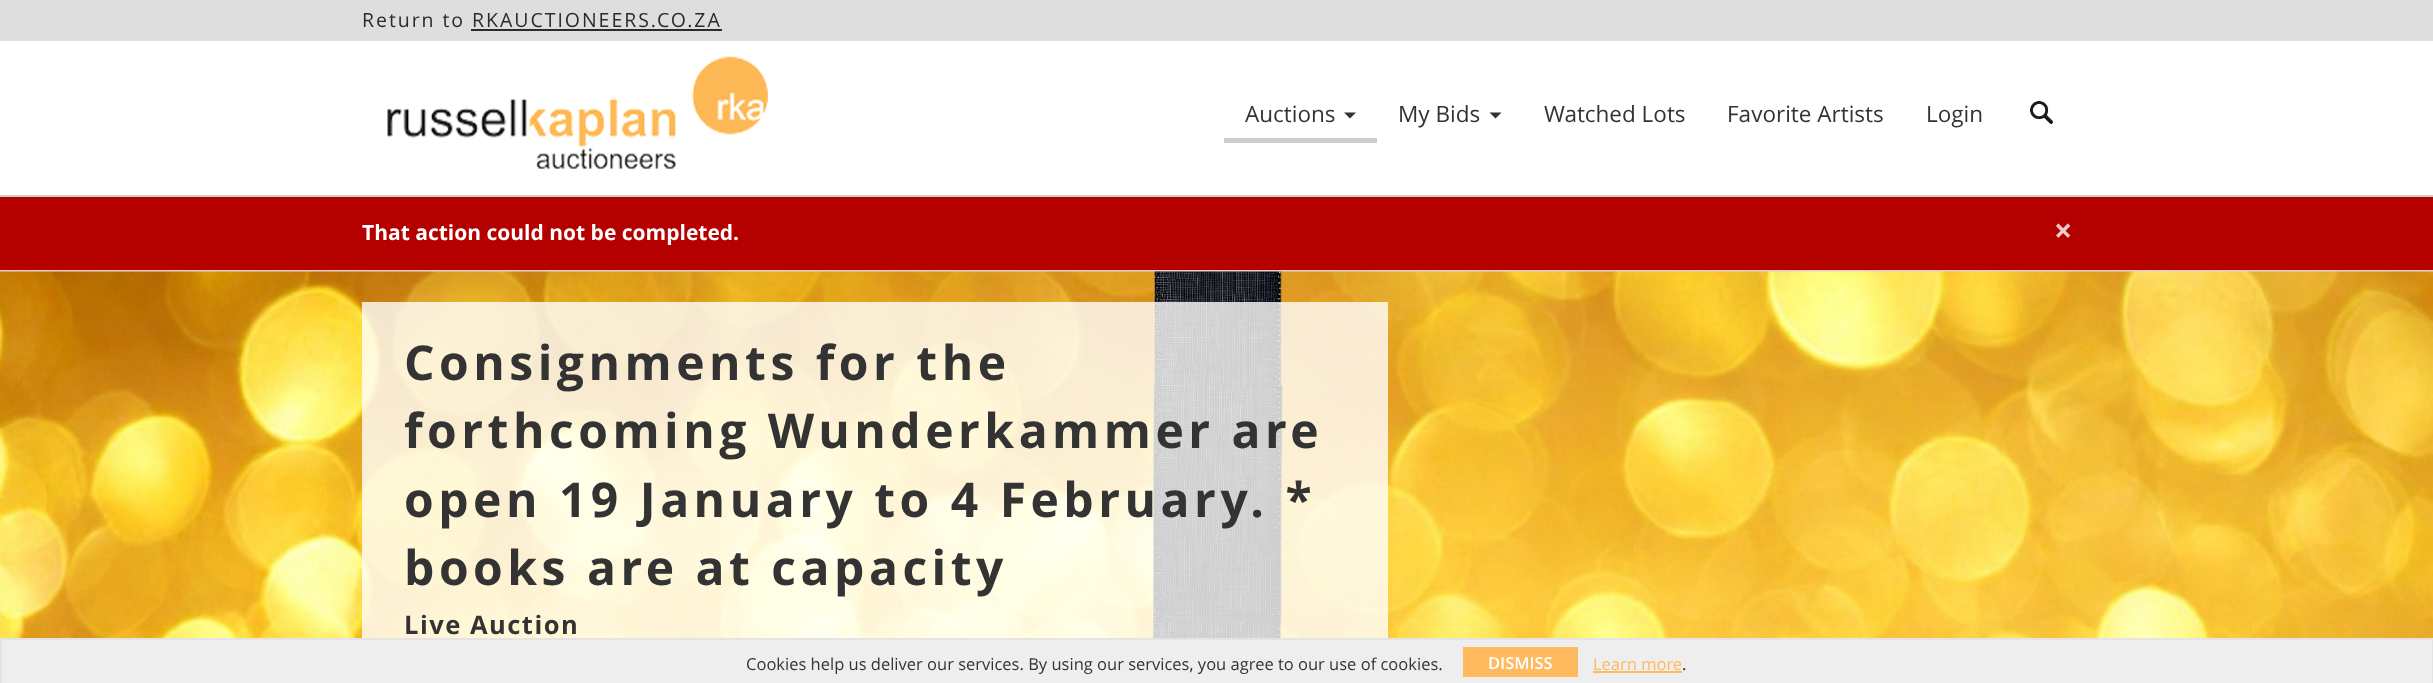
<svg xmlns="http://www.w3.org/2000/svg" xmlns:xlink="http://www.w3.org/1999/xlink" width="2433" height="683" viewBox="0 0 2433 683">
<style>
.cls-1{font:19.5px Open Sans;letter-spacing:1.95px;fill:#2b2b2b}
.cls-2{font:22.5px Open Sans;fill:#333333}
.cls-3{font:bold 21px Open Sans;fill:#ffffff}
.cls-4{font:bold 32px Open Sans;fill:#f0cccc}
.cls-5{font:bold 48px Open Sans;letter-spacing:4.5px;fill:#333333}
.cls-6{font:bold 25.5px Open Sans;letter-spacing:1.5px;fill:#333333}
.cls-7{font:16.5px Open Sans;fill:#333333}
.cls-8{font:600 16.5px Open Sans;fill:#ffffff}
.cls-9{font:16.5px Open Sans;fill:#ffba5f}
</style>
<rect width="100%" height="100%" fill="#b50000"/>
<rect fill="#dedede" x="0" y="0" width="2433" height="41"/>
<rect fill="#2b2b2b" x="471" y="29" width="251" height="2"/>
<rect fill="#ffffff" x="0" y="41" width="2433" height="154"/>
<rect fill="#cccccc" x="0" y="195" width="2433" height="2"/>
<image xlink:href="image0.png" x="387" y="56" width="382" height="113"/>
<rect fill="#cccccc" x="1224" y="138" width="153" height="5"/>
<path fill="#333333" d="M1344 112.5H1356L1350 118.5Z"/>
<path fill="#333333" d="M1489.5 112.5H1501.5L1495.5 118.5Z"/>
<image xlink:href="image1.png" x="2030" y="101" width="23" height="23"/>
<rect fill="#ebccd1" x="0" y="270" width="2433" height="2"/>
<image xlink:href="image2.png" x="0" y="271" width="2433" height="367"/>
<rect fill="#ffffff" fill-opacity="0.8" x="362" y="302" width="1026" height="336"/>
<rect fill="#eeeeee" x="2" y="640" width="2430" height="43"/>
<rect fill="#e4e4e4" x="0" y="638" width="2433" height="2"/>
<rect fill="#e4e4e4" x="2432" y="638" width="1" height="45"/>
<rect fill="#e4e4e4" x="0" y="638" width="2" height="45"/>
<rect fill="#ffba5f" x="1463" y="647" width="115" height="30"/>
<rect fill="#ffba5f" x="1593" y="671" width="89" height="2"/>
<text class="cls-1" x="362" y="27">Return to RKAUCTIONEERS.CO.ZA</text>
<text class="cls-2" x="1245" y="122">Auctions</text>
<text class="cls-2" x="1398" y="122">My Bids</text>
<text class="cls-2" x="1544" y="122">Watched Lots</text>
<text class="cls-2" x="1727" y="122">Favorite Artists</text>
<text class="cls-2" x="1926" y="122">Login</text>
<text class="cls-3" x="362" y="240">That action could not be completed.</text>
<text class="cls-4" x="2054" y="242">×</text>
<text class="cls-5"><tspan x="404" y="380">Consignments for the</tspan><tspan x="404" y="448">forthcoming Wunderkammer are</tspan><tspan x="404" y="517">open 19 January to 4 February. *</tspan><tspan x="404" y="585">books are at capacity</tspan></text>
<text class="cls-6" x="404" y="634">Live Auction</text>
<text class="cls-7" x="746" y="670">Cookies help us deliver our services. By using our services, you agree to our use of cookies.</text>
<text class="cls-8" x="1488" y="669">DISMISS</text>
<text class="cls-9" x="1593" y="670">Learn more</text>
<text class="cls-7" x="1682" y="670">.</text>
</svg>
